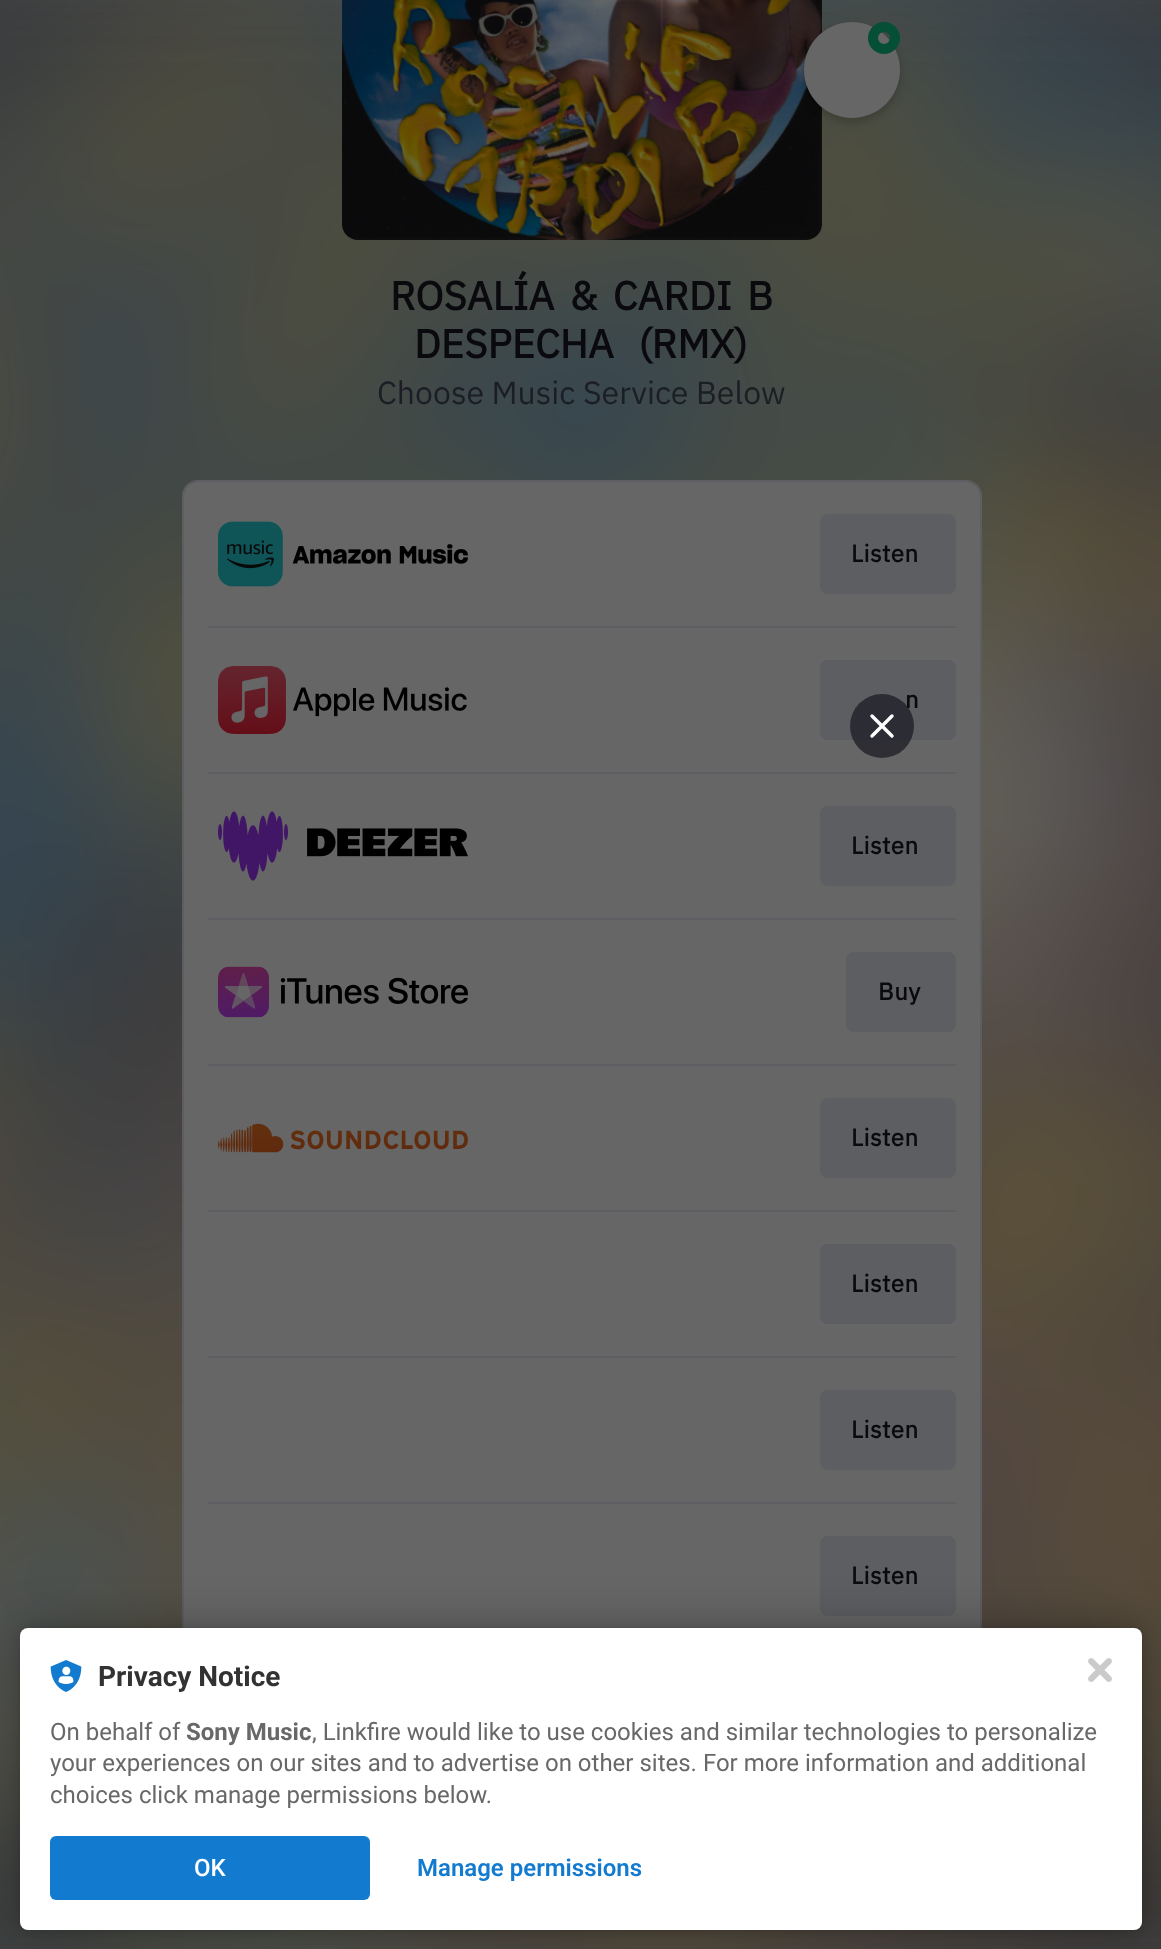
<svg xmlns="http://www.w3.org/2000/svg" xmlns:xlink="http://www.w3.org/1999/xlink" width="1161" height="1949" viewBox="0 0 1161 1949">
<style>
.cls-1{font:bold 40px IBM Plex Sans;fill:#0a090d}
.cls-2{font:32px IBM Plex Sans;fill:#1c1e26}
.cls-3{font:bold 24px IBM Plex Sans;letter-spacing:0.5px;fill:#0a090d}
.cls-4{font:bold 28px Roboto;fill:#323232}
.cls-5{font:24px Roboto;fill:#686868}
.cls-6{font:bold 24px Roboto;fill:#686868}
.cls-7{font:500 24px Roboto;fill:#ffffff}
.cls-8{font:600 24px Roboto;fill:#137bcf}
</style>
<rect width="100%" height="100%" fill="#666666"/>
<image xlink:href="image0.png" x="0" y="0" width="1161" height="1949"/>
<image xlink:href="image1.png" x="342" y="0" width="480" height="240"/>
<rect fill="#000000" fill-opacity="0.2" filter="blur(4px)" x="804" y="26" width="96" height="96" rx="48"/>
<circle fill="#666666" cx="852" cy="70" r="48"/>
<circle fill="none" stroke="#054f36" stroke-width="10" cx="884" cy="38" r="11"/>
<rect fill="none" stroke="#5c5e61" stroke-width="2" x="183" y="481" width="798" height="1314" rx="15"/>
<rect fill="#666666" x="184" y="482" width="796" height="1312" rx="14"/>
<image xlink:href="image2.png" x="218" y="521" width="250" height="66"/>
<rect fill="#5c5e61" x="820" y="514" width="136" height="80" rx="8"/>
<rect fill="#5c5e61" x="208" y="626" width="748" height="2"/>
<image xlink:href="image3.png" x="218" y="666" width="249" height="68"/>
<rect fill="#5c5e61" x="820" y="660" width="136" height="80" rx="8"/>
<rect fill="#5c5e61" x="208" y="772" width="748" height="2"/>
<image xlink:href="image4.png" x="218" y="811" width="250" height="70"/>
<rect fill="#5c5e61" x="820" y="806" width="136" height="80" rx="8"/>
<rect fill="#5c5e61" x="208" y="918" width="748" height="2"/>
<image xlink:href="image5.png" x="218" y="966" width="250" height="52"/>
<rect fill="#5c5e61" x="846" y="952" width="110" height="80" rx="8"/>
<rect fill="#5c5e61" x="208" y="1064" width="748" height="2"/>
<image xlink:href="image6.png" x="218" y="1123" width="250" height="30"/>
<rect fill="#5c5e61" x="820" y="1098" width="136" height="80" rx="8"/>
<rect fill="#5c5e61" x="208" y="1210" width="748" height="2"/>
<rect fill="#5c5e61" x="820" y="1244" width="136" height="80" rx="8"/>
<rect fill="#5c5e61" x="208" y="1356" width="748" height="2"/>
<rect fill="#5c5e61" x="820" y="1390" width="136" height="80" rx="8"/>
<rect fill="#5c5e61" x="208" y="1502" width="748" height="2"/>
<rect fill="#5c5e61" x="820" y="1536" width="136" height="80" rx="8"/>
<rect fill="#000000" fill-opacity="0.12" filter="blur(4px)" x="20" y="1628" width="1122" height="302" rx="8"/>
<rect fill="#000000" fill-opacity="0.3" filter="blur(24px)" x="20" y="1628" width="1122" height="302" rx="8"/>
<rect fill="#ffffff" x="20" y="1628" width="1122" height="302" rx="8"/>
<image xlink:href="image7.png" x="50" y="1660" width="32" height="32"/>
<rect fill="#137bcf" x="50" y="1836" width="320" height="64" rx="6"/>
<image xlink:href="image8.png" x="1088" y="1658" width="24" height="24"/>
<text class="cls-1" x="390" y="310" word-spacing="6">ROSALÍA &amp; CARDI B</text>
<text class="cls-1" x="414" y="358" word-spacing="15">DESPECHA (RMX)</text>
<text class="cls-2" x="377" y="404">Choose Music Service Below</text>
<text class="cls-3" x="851" y="562">Listen</text>
<text class="cls-3" x="905" y="708">n</text>
<circle fill="#181721" fill-opacity="0.7" cx="882" cy="726" r="32"/>
<path fill="none" stroke="#ffffff" stroke-width="3.4" stroke-linecap="round" stroke-linejoin="round" d="M872 716L892 736M872 736L892 716"/>
<text class="cls-3" x="851" y="854">Listen</text>
<text class="cls-3" x="878" y="1000">Buy</text>
<text class="cls-3" x="851" y="1146">Listen</text>
<text class="cls-3" x="851" y="1292">Listen</text>
<text class="cls-3" x="851" y="1438">Listen</text>
<text class="cls-3" x="851" y="1584">Listen</text>
<text class="cls-4" x="98" y="1686">Privacy Notice</text>
<text class="cls-5" x="50" y="1740">On behalf of</text>
<text class="cls-6" x="186" y="1740">Sony Music</text>
<text class="cls-5" x="312" y="1740">, Linkfire would like to use cookies and similar technologies to personalize</text>
<text class="cls-5"><tspan x="50" y="1771">your experiences on our sites and to advertise on other sites. For more information and additional</tspan><tspan x="50" y="1803">choices click manage permissions below.</tspan></text>
<text class="cls-7" x="194" y="1876">OK</text>
<text class="cls-8" x="417" y="1876">Manage permissions</text>
</svg>
